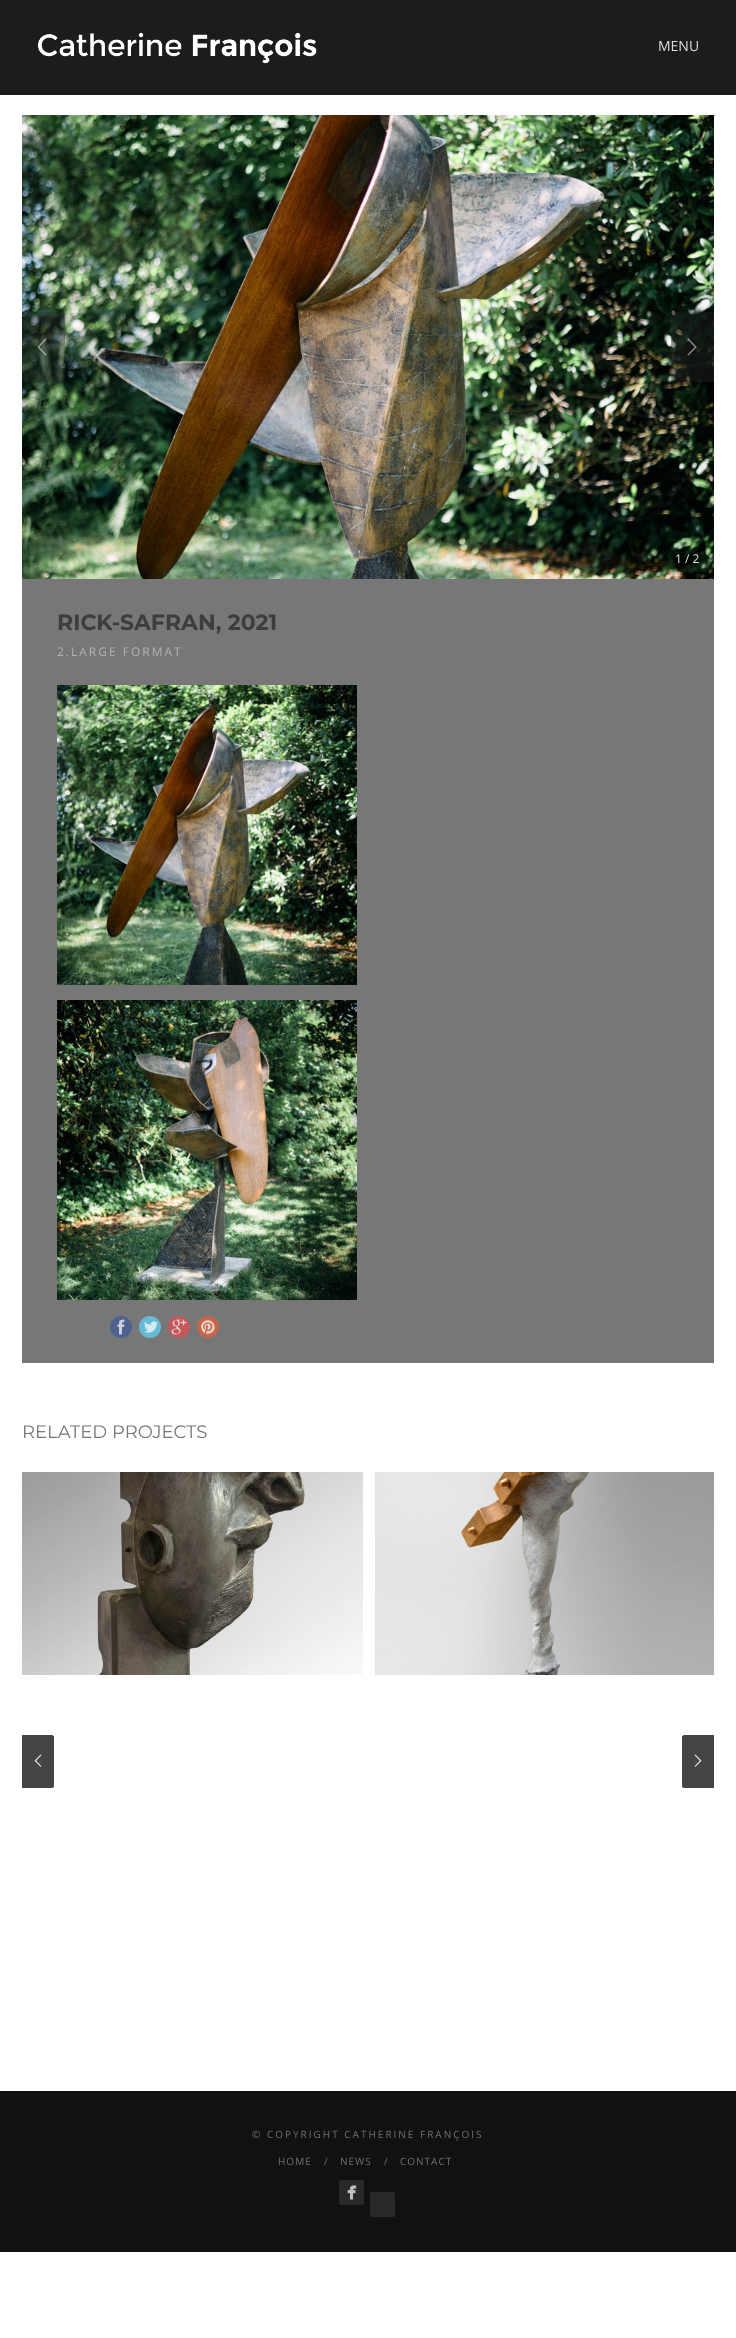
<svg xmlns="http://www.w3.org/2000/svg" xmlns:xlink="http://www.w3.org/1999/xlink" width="736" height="2338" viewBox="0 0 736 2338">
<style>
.cls-1{font:14px Open Sans;fill:#dddddd}
.cls-2{font:12px Open Sans;fill:#e6e6e6}
.cls-3{font:bold 22px Montserrat;fill:#3d3d3d}
.cls-4{font:12px Open Sans;letter-spacing:2px;fill:#b3b3b1}
.cls-5{font:18px Montserrat;fill:#777777}
.cls-6{font:10px Open Sans;letter-spacing:2px;fill:#707070}
.cls-7{font:10px Open Sans;letter-spacing:1px;fill:#707070}
</style>
<rect width="100%" height="100%" fill="#ffffff"/>
<rect fill="#1c1c1c" x="0" y="0" width="736" height="95"/>
<image xlink:href="image0.png" x="38" y="32" width="279" height="32"/>
<rect fill="#777777" x="22" y="579" width="692" height="784"/>
<image xlink:href="image1.png" x="22" y="115" width="692" height="464"/>
<path fill="#252525" fill-opacity="0.4" d="M22 312H62C63.5 312 65 313.5 65 315V379C65 380.5 63.5 382 62 382H22Z"/>
<image xlink:href="image2.png" x="37" y="338" width="10" height="18"/>
<path fill="#252525" fill-opacity="0.4" d="M674 312H714V382H674C672.5 382 671 380.5 671 379V315C671 313.5 672.5 312 674 312Z"/>
<image xlink:href="image3.png" x="687" y="338" width="10" height="18"/>
<image xlink:href="image4.png" x="57" y="685" width="300" height="300"/>
<image xlink:href="image5.png" x="57" y="1000" width="300" height="300"/>
<circle fill="#4e6290" cx="121" cy="1327" r="11"/>
<image xlink:href="image6.png" x="117" y="1319" width="8" height="16"/>
<circle fill="#67bad5" cx="150" cy="1327" r="11"/>
<image xlink:href="image7.png" x="144" y="1321" width="14" height="12"/>
<circle fill="#c4585b" cx="179" cy="1327" r="11"/>
<image xlink:href="image8.png" x="171" y="1319" width="16" height="16"/>
<circle fill="#c6654c" cx="208" cy="1327" r="11"/>
<image xlink:href="image9.png" x="201" y="1320" width="14" height="14"/>
<image xlink:href="image10.png" x="22" y="1472" width="341" height="203"/>
<image xlink:href="image11.png" x="375" y="1472" width="339" height="203"/>
<path fill="#454545" d="M22 1735H52C53 1735 54 1736 54 1737V1786C54 1787 53 1788 52 1788H22Z"/>
<image xlink:href="image12.png" x="34" y="1754" width="8" height="13"/>
<path fill="#454545" d="M684 1735H714V1788H684C683 1788 682 1787 682 1786V1737C682 1736 683 1735 684 1735Z"/>
<image xlink:href="image13.png" x="694" y="1754" width="8" height="13"/>
<rect fill="#111111" x="0" y="2091" width="736" height="161"/>
<rect fill="#292929" x="339" y="2180" width="25" height="25" rx="2"/>
<image xlink:href="image14.png" x="347" y="2185" width="10" height="15"/>
<rect fill="#292929" x="370" y="2192" width="25" height="25" rx="2"/>
<text class="cls-1" x="658" y="51">MENU</text>
<text class="cls-2" x="675" y="563">1 / 2</text>
<text class="cls-3" x="57" y="630">RICK-SAFRAN, 2021</text>
<text class="cls-4" x="57" y="656">2.LARGE FORMAT</text>
<text class="cls-5" x="22" y="1438">RELATED PROJECTS</text>
<text class="cls-6" x="252" y="2138">© COPYRIGHT CATHERINE FRANÇOIS</text>
<text class="cls-7" x="278" y="2165">HOME</text>
<text class="cls-7" x="324" y="2165">/</text>
<text class="cls-7" x="340" y="2165">NEWS</text>
<text class="cls-7" x="384" y="2165">/</text>
<text class="cls-7" x="400" y="2165">CONTACT</text>
</svg>
